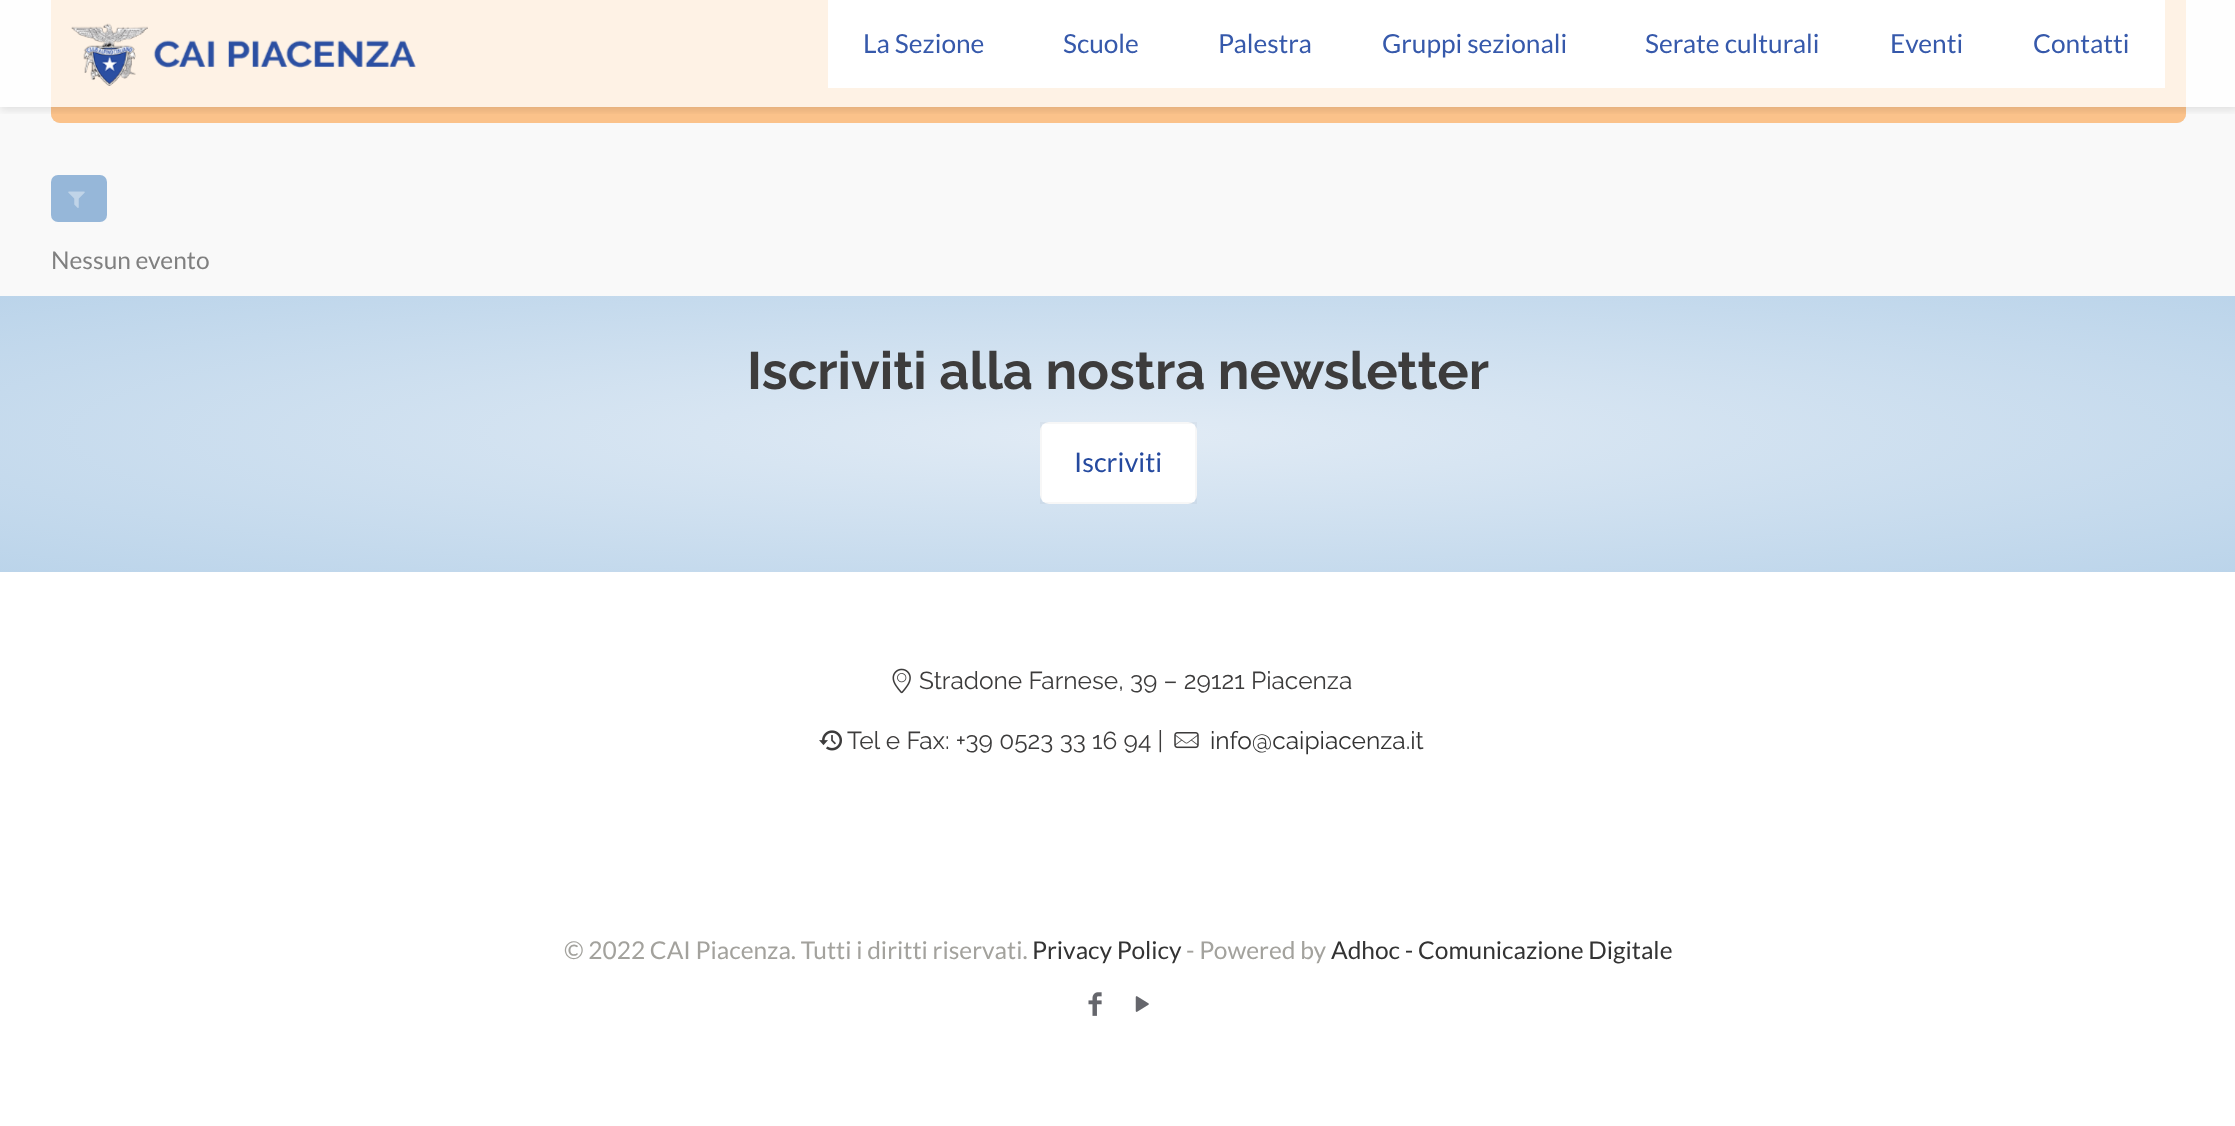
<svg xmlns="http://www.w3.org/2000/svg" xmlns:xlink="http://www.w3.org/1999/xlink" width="2235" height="1126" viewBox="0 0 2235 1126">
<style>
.cls-1{font:26.25px Lato;fill:#3659ab}
.cls-2{font:24.5px Lato;fill:#808080}
.cls-3{font:bold 52.5px Raleway;fill:#3d3c3c}
.cls-4{font:27px Lato;fill:#254a9f}
.cls-5{font:24.5px Raleway;fill:#3d3c3c}
.cls-6{font:24.5px Raleway;fill:#333333}
.cls-7{font:24.5px Lato;fill:#a3a29d}
.cls-8{font:24.5px Lato;fill:#333333}
</style>
<defs>
<clipPath id="clip1"><rect x="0" y="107" width="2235" height="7"/></clipPath>
<radialGradient id="g1" gradientUnits="userSpaceOnUse" cx="0" cy="0" r="1" gradientTransform="matrix(1581 0 0 196 1118 434)"><stop offset="0" stop-color="#e1ebf5"/><stop offset="1" stop-color="#bbd4ea"/></radialGradient>
</defs>
<rect width="100%" height="100%" fill="#f9f9f9"/>
<rect fill="#dcdcdc" x="51" y="-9" width="2135" height="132" rx="9"/>
<rect fill="#ffbf80" fill-opacity="0.89" x="51" y="-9" width="2135" height="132" rx="9"/>
<g clip-path="url(#clip1)">
<rect fill="#000000" fill-opacity="0.1" filter="blur(4.5px)" x="0" y="4" width="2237" height="106"/>
</g>
<rect fill="#ffffff" fill-opacity="0.78" x="0" y="0" width="2235" height="107"/>
<image xlink:href="image0.png" x="71" y="23" width="345" height="63"/>
<rect fill="#ffffff" fill-opacity="0.78" x="828" y="0" width="1337" height="88"/>
<rect fill="#ffffff" fill-opacity="0.97" x="828" y="0" width="1337" height="88"/>
<rect fill="#96b7d9" x="51" y="175" width="56" height="47" rx="7"/>
<image xlink:href="image1.png" x="68" y="191" width="17" height="17"/>
<rect fill="#ffffff" x="0" y="572" width="2235" height="554"/>
<rect fill="url(#g1)" x="0" y="296" width="2235" height="276"/>
<rect fill="#ffffff" x="1040" y="422" width="157" height="82" rx="9"/>
<rect fill="none" stroke="#000000" stroke-opacity="0.03" stroke-width="2" x="1041" y="423" width="155" height="80"/>
<image xlink:href="image2.png" x="892" y="668" width="19" height="26"/>
<image xlink:href="image3.png" x="819" y="730" width="23" height="21"/>
<image xlink:href="image4.png" x="1174" y="732" width="25" height="17"/>
<image xlink:href="image5.png" x="1088" y="992" width="14" height="24"/>
<image xlink:href="image6.png" x="1135" y="996" width="14" height="16"/>
<text class="cls-1" x="863" y="53">La Sezione</text>
<text class="cls-1" x="1063" y="53">Scuole</text>
<text class="cls-1" x="1218" y="53">Palestra</text>
<text class="cls-1" x="1382" y="53">Gruppi sezionali</text>
<text class="cls-1" x="1645" y="53">Serate culturali</text>
<text class="cls-1" x="1890" y="53">Eventi</text>
<text class="cls-1" x="2033" y="53">Contatti</text>
<text class="cls-2" x="51" y="269">Nessun evento</text>
<text class="cls-3" x="747" y="389">Iscriviti alla nostra newsletter</text>
<text class="cls-4" x="1074" y="472">Iscriviti</text>
<text class="cls-5" x="919" y="689">Stradone Farnese, 39 – 29121 Piacenza</text>
<text class="cls-5" x="847" y="749">Tel e Fax: +39 0523 33 16 94 |</text>
<text class="cls-6" x="1210" y="749">info@caipiacenza.it</text>
<text class="cls-7" x="564" y="959">© 2022 CAI Piacenza. Tutti i diritti riservati.</text>
<text class="cls-8" x="1032" y="959">Privacy Policy</text>
<text class="cls-7" x="1186" y="959">- Powered by</text>
<text class="cls-8" x="1331" y="959">Adhoc - Comunicazione Digitale</text>
</svg>
